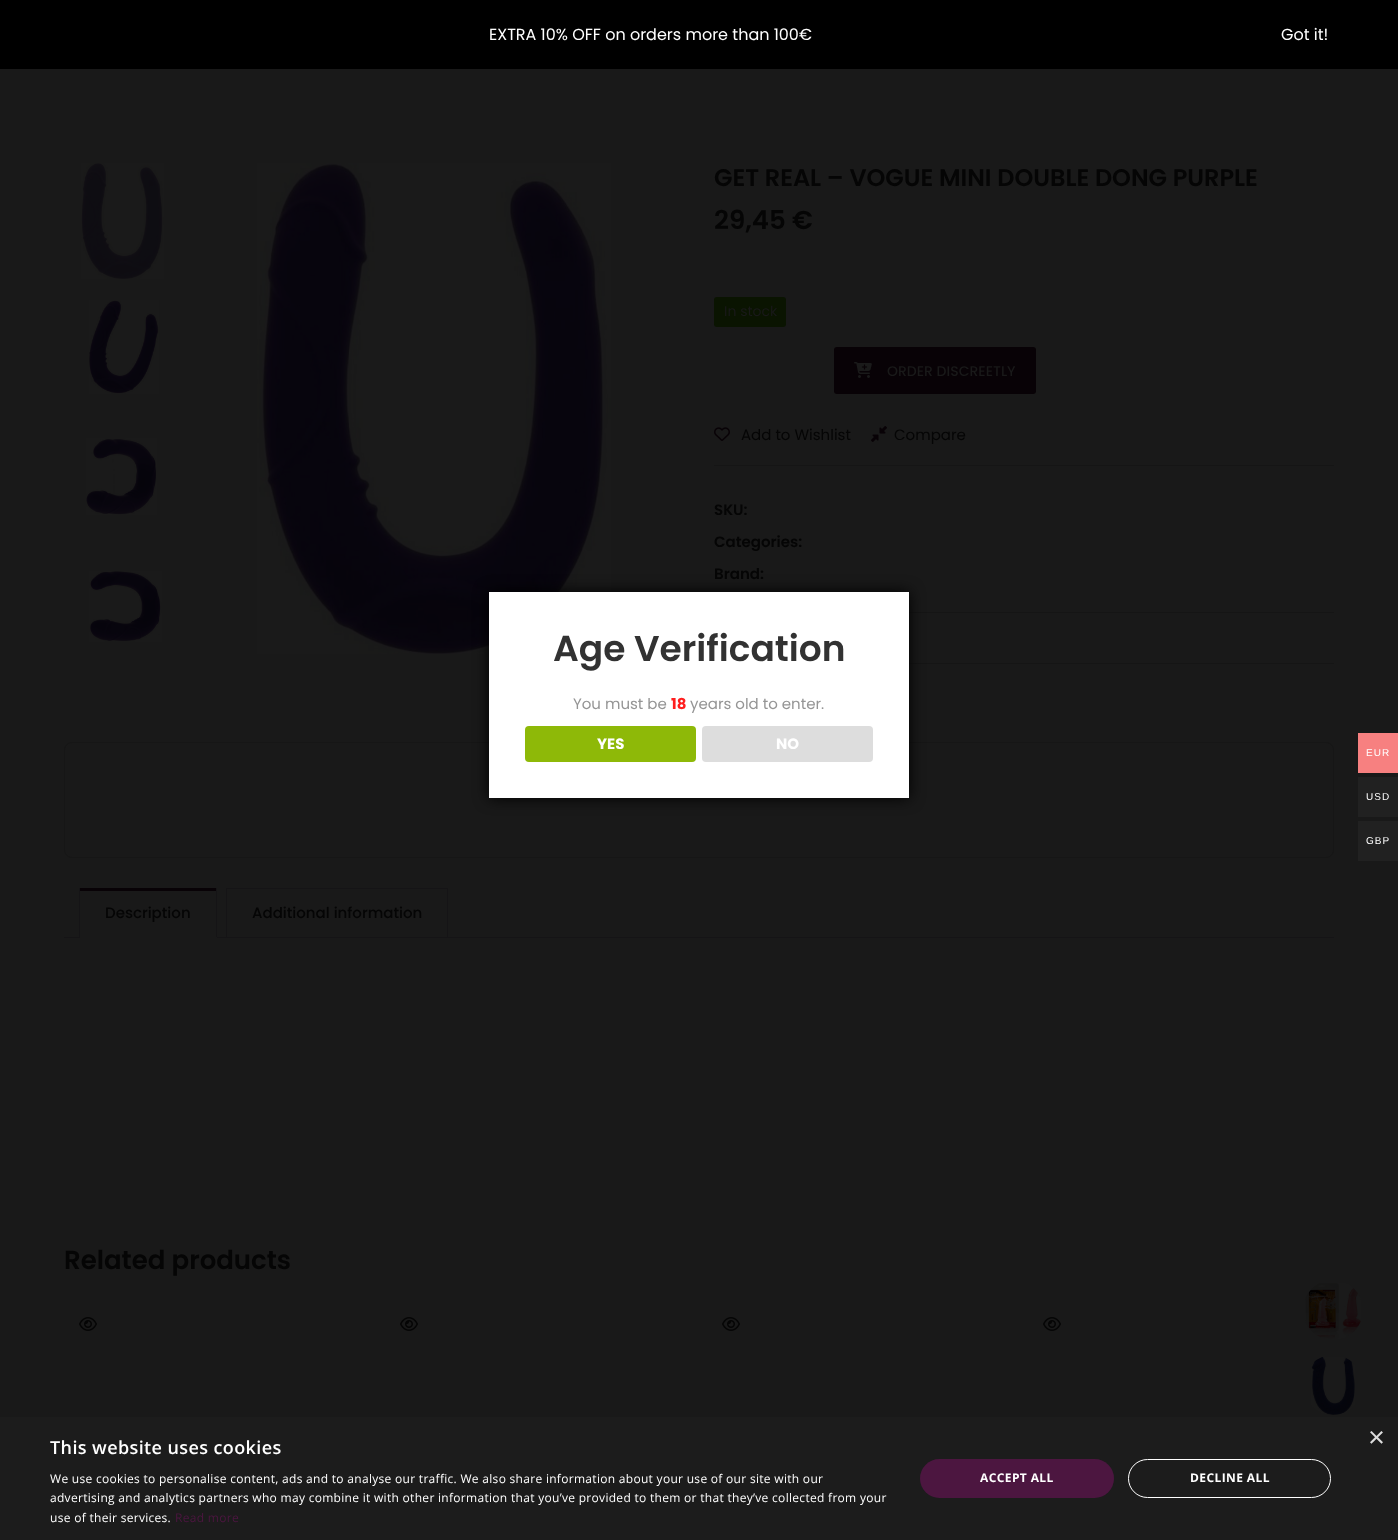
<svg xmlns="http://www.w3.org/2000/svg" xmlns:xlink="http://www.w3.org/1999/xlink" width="1398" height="1540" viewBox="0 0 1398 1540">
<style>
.cls-1{font:16px Poppins;fill:#ffffff}
.cls-2{font:600 24px Poppins;fill:#050505}
.cls-3{font:600 26px Poppins;fill:#050505}
.cls-4{font:14px Poppins;fill:#191919}
.cls-5{font:500 14px Poppins;fill:#191919}
.cls-6{font:15px Poppins;fill:#050505}
.cls-7{font:600 15px Poppins;fill:#050505}
.cls-8{font:500 15px Poppins;fill:#050505}
.cls-9{font:600 36px Poppins;fill:#323232}
.cls-10{font:15px Poppins;fill:#959595}
.cls-11{font:bold 15px Poppins;fill:#ff1f1f}
.cls-12{font:bold 15px Poppins;fill:#ffffff}
.cls-13{font:10px Liberation Sans;letter-spacing:1px;fill:#ffffff}
.cls-14{font:29px Liberation Sans;fill:#dddddd}
.cls-15{font:600 18px Open Sans;letter-spacing:0.4px;fill:#ffffff}
.cls-16{font:12px Open Sans;letter-spacing:0.3px;fill:#ffffff}
.cls-17{font:12px Open Sans;letter-spacing:0.3px;fill:#4c1640}
.cls-18{font:bold 12px Open Sans;letter-spacing:0.4px;fill:#ffffff}
</style>
<rect width="100%" height="100%" fill="#191919"/>
<rect fill="#000000" x="0" y="0" width="1398" height="69"/>
<image xlink:href="image0.png" x="81" y="163" width="83" height="116"/>
<image xlink:href="image1.png" x="89" y="300" width="70" height="94"/>
<image xlink:href="image2.png" x="86" y="438" width="71" height="77"/>
<image xlink:href="image3.png" x="89" y="571" width="73" height="71"/>
<image xlink:href="image4.png" x="257" y="163" width="354" height="491"/>
<rect fill="#0a1401" x="714" y="297" width="72" height="30" rx="3"/>
<rect fill="#080206" x="834" y="347" width="202" height="47" rx="3"/>
<image xlink:href="image5.png" x="854" y="362" width="18" height="16"/>
<rect fill="#151515" x="714" y="465" width="620" height="1"/>
<image xlink:href="image6.png" x="714" y="427" width="16" height="14"/>
<image xlink:href="image7.png" x="871" y="426" width="16" height="16"/>
<rect fill="#151515" x="909" y="612" width="425" height="1"/>
<rect fill="#151515" x="909" y="663" width="425" height="1"/>
<rect fill="none" stroke="#161616" x="64.5" y="742.5" width="1269" height="115" rx="7.5"/>
<rect fill="none" stroke="#151416" x="226.5" y="888.5" width="221" height="49"/>
<rect fill="#151416" x="64" y="937" width="1270" height="1"/>
<rect fill="#151416" x="216" y="888" width="1" height="50"/>
<rect fill="#191919" x="79" y="937" width="138" height="1"/>
<rect fill="#151416" x="79" y="888" width="1" height="50"/>
<rect fill="#080206" x="80" y="888" width="136" height="3"/>
<image xlink:href="image8.png" x="79" y="1317" width="18" height="14"/>
<image xlink:href="image8.png" x="400" y="1317" width="18" height="14"/>
<image xlink:href="image8.png" x="722" y="1317" width="18" height="14"/>
<image xlink:href="image8.png" x="1043" y="1317" width="18" height="14"/>
<image xlink:href="image9.png" x="1305" y="1283" width="56" height="56"/>
<image xlink:href="image10.png" x="1311" y="1357" width="44" height="58"/>
<rect fill="#000000" filter="blur(7.5px)" x="489" y="592" width="420" height="206"/>
<rect fill="#ffffff" x="489" y="592" width="420" height="206"/>
<rect fill="#8eb908" x="525" y="726" width="171" height="36" rx="4"/>
<rect fill="#dddddd" x="702" y="726" width="171" height="36" rx="4"/>
<rect fill="#f78080" x="1358" y="733" width="40" height="40"/>
<rect fill="#212121" x="1358" y="777" width="40" height="40"/>
<rect fill="#212121" x="1358" y="821" width="40" height="40"/>
<rect fill="#1c1c1c" x="0" y="1417" width="1398" height="123"/>
<rect fill="#4c1640" x="920" y="1459" width="194" height="39" rx="19.5"/>
<rect fill="none" stroke="#ffffff" x="1128.5" y="1459.5" width="202" height="38" rx="19"/>
<text class="cls-1" x="489" y="40">EXTRA 10% OFF on orders more than 100€</text>
<text class="cls-1" x="1281" y="40">Got it!</text>
<text class="cls-2" x="714" y="186">GET REAL – VOGUE MINI DOUBLE DONG PURPLE</text>
<text class="cls-3" x="714" y="229">29,45 €</text>
<text class="cls-4" x="724" y="316">In stock</text>
<text class="cls-5" x="887" y="376">ORDER DISCREETLY</text>
<text class="cls-6" x="741" y="440">Add to Wishlist</text>
<text class="cls-6" x="894" y="440">Compare</text>
<text class="cls-7" x="714" y="515">SKU:</text>
<text class="cls-7" x="714" y="547">Categories:</text>
<text class="cls-7" x="714" y="579">Brand:</text>
<text class="cls-8" x="105" y="918">Description</text>
<text class="cls-8" x="252" y="918">Additional information</text>
<text class="cls-3" x="64" y="1269">Related products</text>
<text class="cls-9" x="553" y="661">Age Verification</text>
<text class="cls-10" x="573" y="709">You must be</text>
<text class="cls-11" x="671" y="709">18</text>
<text class="cls-10" x="690" y="709">years old to enter.</text>
<text class="cls-12" x="597" y="749">YES</text>
<text class="cls-12" x="776" y="749">NO</text>
<text class="cls-13" x="1366" y="756">EUR</text>
<text class="cls-13" x="1366" y="800">USD</text>
<text class="cls-13" x="1366" y="844">GBP</text>
<text class="cls-14" x="1368" y="1447">×</text>
<text class="cls-15" x="50" y="1454">This website uses cookies</text>
<text class="cls-16"><tspan x="50" y="1483">We use cookies to personalise content, ads and to analyse our traffic. We also share information about your use of our site with our</tspan><tspan x="50" y="1502">advertising and analytics partners who may combine it with other information that you’ve provided to them or that they’ve collected from your</tspan><tspan x="50" y="1522">use of their services.</tspan></text>
<text class="cls-17" x="175" y="1522">Read more</text>
<text class="cls-18" x="980" y="1482">ACCEPT ALL</text>
<text class="cls-18" x="1190" y="1482">DECLINE ALL</text>
</svg>
